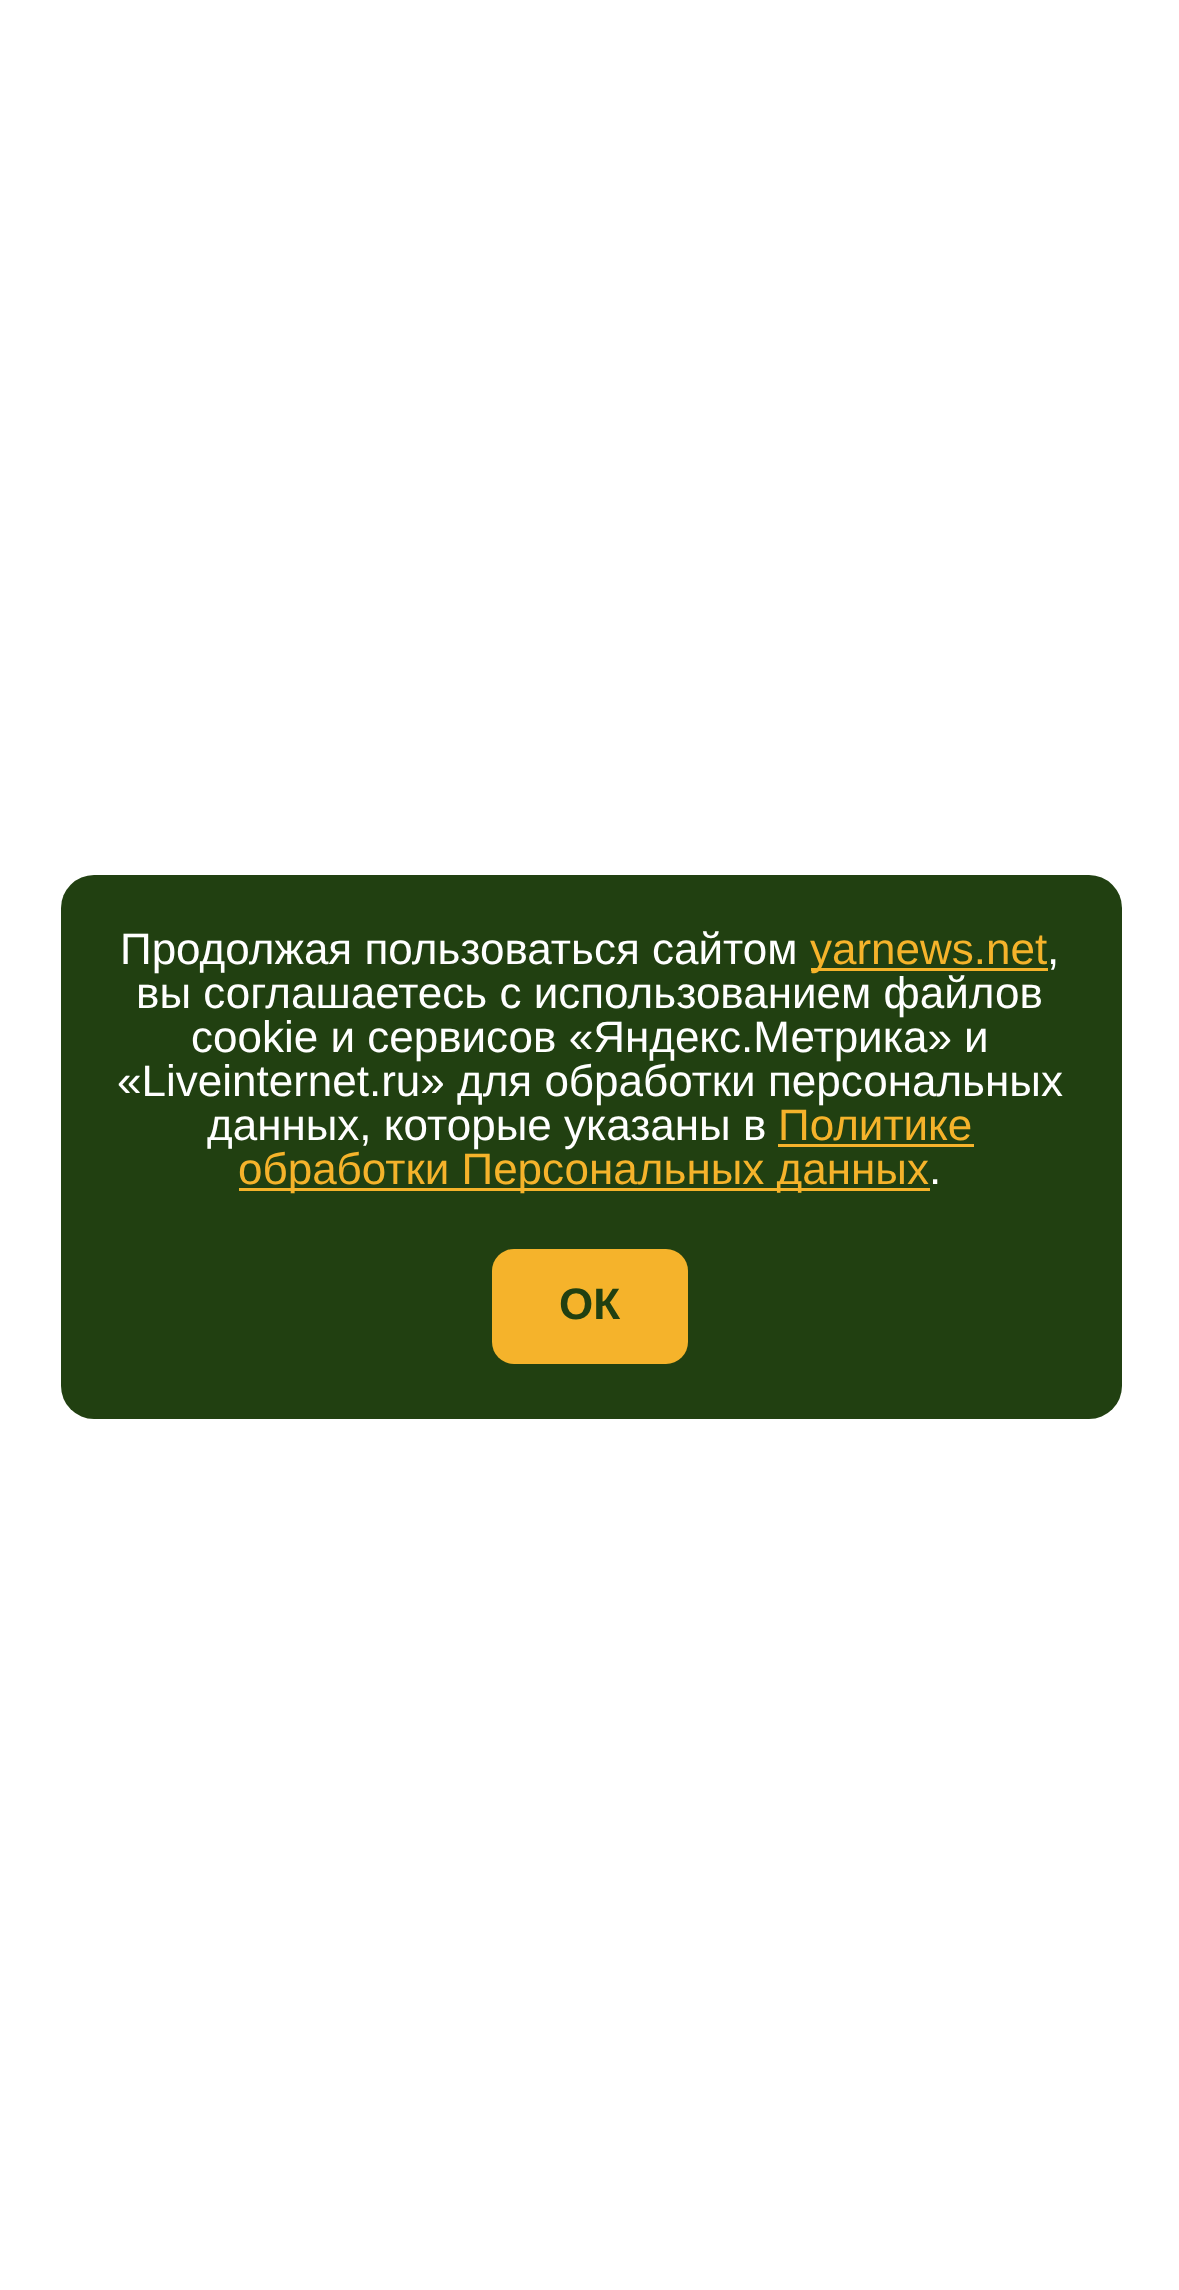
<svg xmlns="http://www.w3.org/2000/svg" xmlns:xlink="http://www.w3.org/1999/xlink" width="1179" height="2290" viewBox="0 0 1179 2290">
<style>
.cls-1{font:44px Liberation Sans;fill:#ffffff}
.cls-2{font:44px Liberation Sans;fill:#f5b32b}
.cls-3{font:bold 44px Liberation Sans;fill:#214011}
</style>
<rect width="100%" height="100%" fill="#ffffff"/>
<rect fill="#214011" x="61" y="875" width="1061" height="544" rx="33"/>
<rect fill="#f5b32b" x="811" y="968" width="237" height="3"/>
<rect fill="#f5b32b" x="778" y="1144" width="196" height="3"/>
<rect fill="#f5b32b" x="239" y="1188" width="691" height="3"/>
<rect fill="#f5b32b" x="492" y="1249" width="196" height="115" rx="22"/>
<text class="cls-1" x="120" y="964">Продолжая пользоваться сайтом</text>
<text class="cls-2" x="810" y="964">yarnews.net</text>
<text class="cls-1" x="1047" y="964">,</text>
<text class="cls-1" x="136" y="1008">вы соглашаетесь с использованием файлов</text>
<text class="cls-1" x="191" y="1052">cookie и сервисов «Яндекс.Метрика» и</text>
<text class="cls-1" x="117" y="1096">«Liveinternet.ru» для обработки персональных</text>
<text class="cls-1" x="207" y="1140">данных, которые указаны в</text>
<text class="cls-2" x="778" y="1140">Политике</text>
<text class="cls-2" x="238" y="1184">обработки Персональных данных</text>
<text class="cls-1" x="929" y="1184">.</text>
<text class="cls-3" x="559" y="1319">ОК</text>
</svg>
